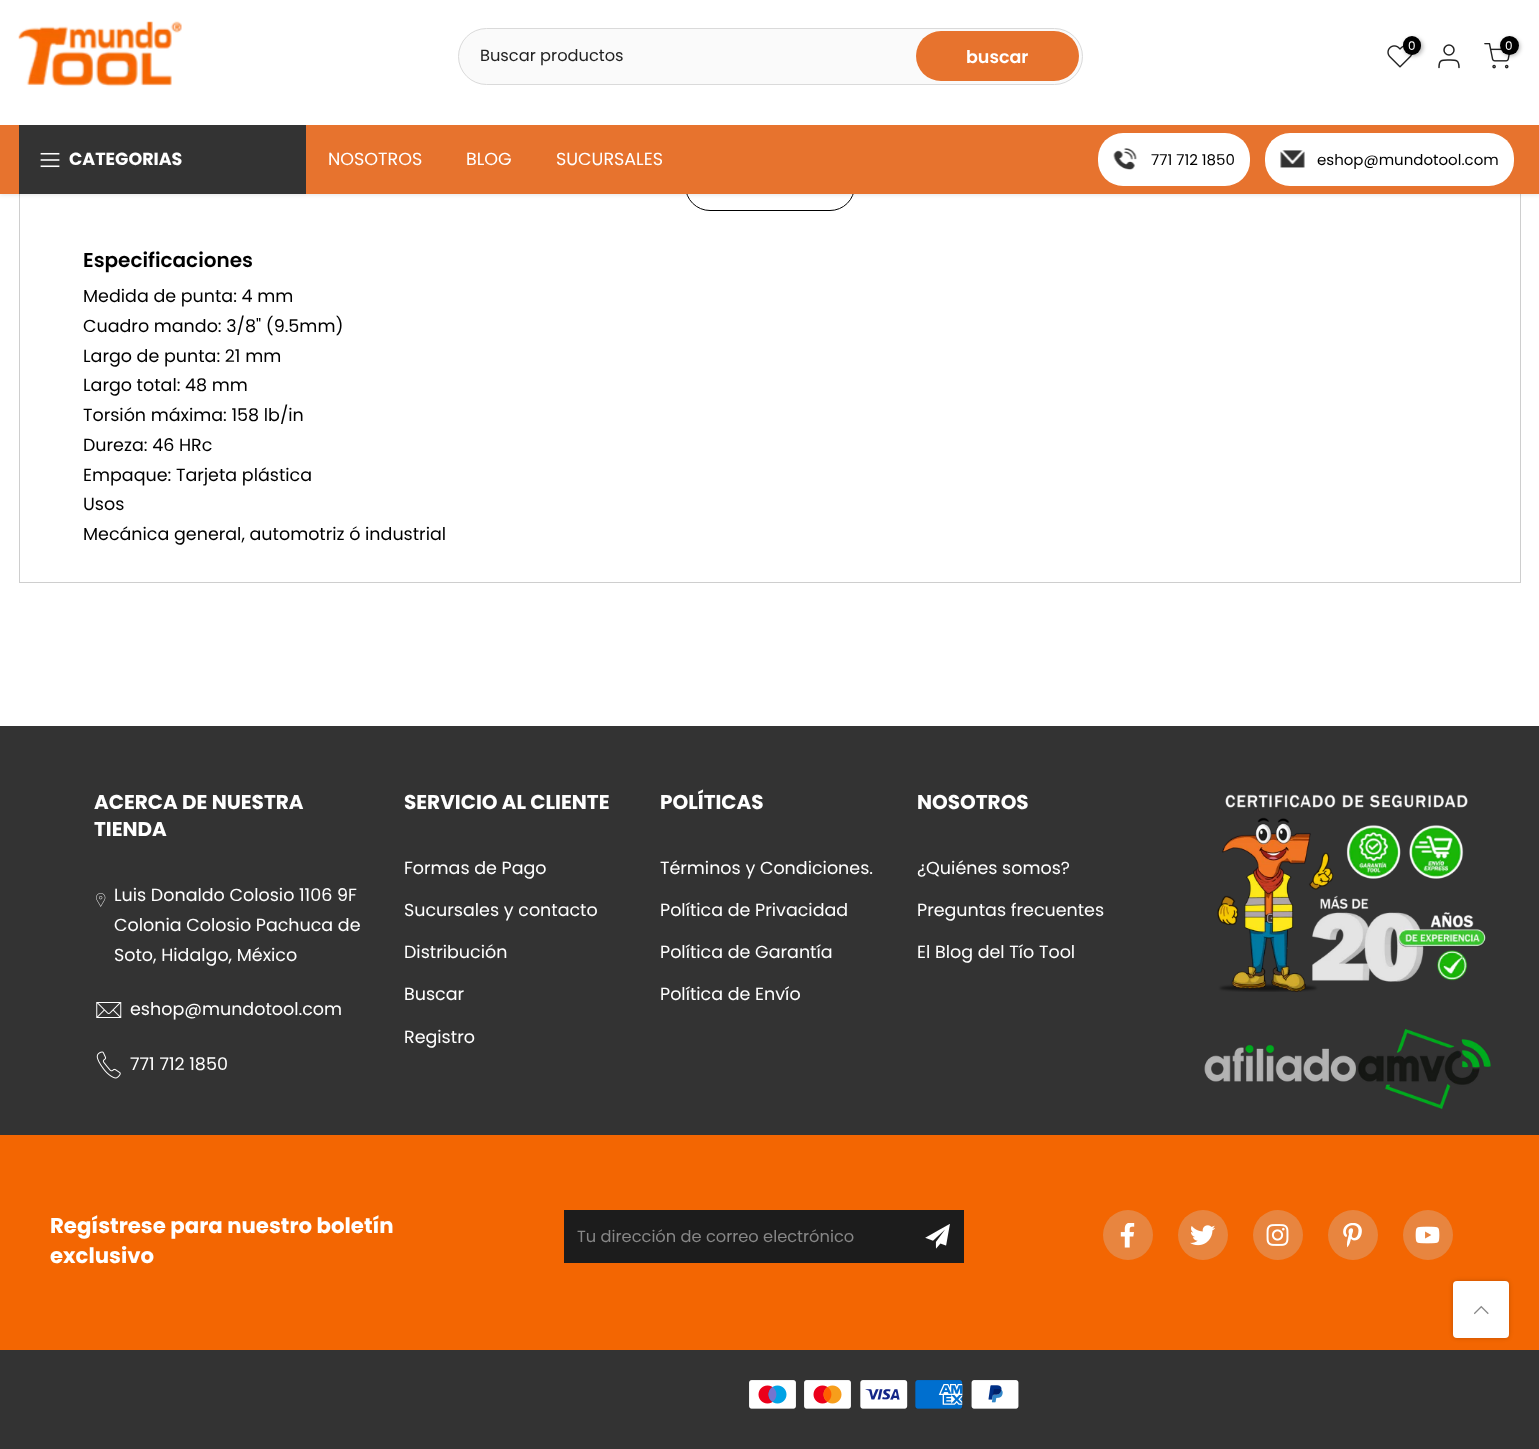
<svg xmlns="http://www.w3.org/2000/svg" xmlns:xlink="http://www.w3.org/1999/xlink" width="1539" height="1449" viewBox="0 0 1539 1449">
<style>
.cls-1{font:12px Poppins;fill:#ffffff}
.cls-2{font:16.25px Poppins;fill:#222222}
.cls-3{font:600 17.5px Poppins;fill:#ffffff}
.cls-4{font:bold 17.5px Poppins;fill:#ffffff}
.cls-5{font:17.5px Poppins;fill:#ffffff}
.cls-6{font:15px Poppins;fill:#000000}
.cls-7{font:600 20px Poppins;fill:#000000}
.cls-8{font:17.5px Poppins;fill:#000000}
.cls-9{font:bold 20px Poppins;fill:#ffffff}
.cls-10{font:bold 21.25px Poppins;fill:#ffffff}
.cls-11{font:16.25px Poppins;fill:#878787}
</style>
<rect width="100%" height="100%" fill="#ffffff"/>
<rect fill="none" stroke="#cecece" x="19.5" y="186.5" width="1501" height="396"/>
<rect fill="#ffffff" stroke="#000000" x="685.5" y="161.5" width="169" height="49" rx="24.5"/>
<rect fill="#000000" fill-opacity="0.1" filter="blur(2px)" x="0" y="1" width="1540" height="194"/>
<rect fill="#ffffff" x="0" y="0" width="1539" height="125"/>
<image xlink:href="image0.png" x="18" y="21" width="164" height="66"/>
<image xlink:href="image1.png" x="1387" y="45" width="26" height="23"/>
<rect fill="#000000" fill-opacity="0.3" filter="blur(2px)" x="1404" y="38" width="19" height="18" rx="9"/>
<rect fill="#000000" x="1403" y="36" width="18" height="19" rx="9"/>
<circle fill="none" stroke="#222222" stroke-width="1.5" cx="1449" cy="50" r="5"/>
<path fill="none" stroke="#222222" stroke-width="1.5" stroke-linecap="round" stroke-linejoin="round" d="M1459 67.5C1459 59.5 1455.5 60 1449 60C1442 60 1439 59.5 1439 67.5"/>
<image xlink:href="image2.png" x="1484" y="43" width="26" height="26"/>
<rect fill="#000000" fill-opacity="0.3" filter="blur(2px)" x="1501" y="38" width="19" height="18" rx="9"/>
<circle fill="#000000" cx="1509.5" cy="45.5" r="9.5"/>
<rect fill="#fafafa" stroke="#dadada" x="458.5" y="28.5" width="624" height="56" rx="28"/>
<rect fill="#e7732e" x="916" y="31" width="163" height="50" rx="25"/>
<rect fill="#e7732e" x="0" y="125" width="1539" height="69"/>
<rect fill="#333333" x="19" y="125" width="287" height="69"/>
<image xlink:href="image3.png" x="40" y="152" width="20" height="16"/>
<rect fill="#ffffff" x="1098" y="133" width="152" height="53" rx="25"/>
<image xlink:href="image4.png" x="1113" y="148" width="24" height="22"/>
<rect fill="#ffffff" x="1265" y="133" width="249" height="53" rx="25"/>
<image xlink:href="image5.png" x="1280" y="150" width="25" height="18"/>
<rect fill="#333333" x="0" y="726" width="1539" height="409"/>
<image xlink:href="image6.png" x="96" y="893" width="10" height="14"/>
<image xlink:href="image7.png" x="96" y="1002" width="26" height="16"/>
<image xlink:href="image8.png" x="96" y="1051" width="25" height="28"/>
<image xlink:href="image9.png" x="1217" y="794" width="269" height="198"/>
<image xlink:href="image10.png" x="1204" y="1028" width="287" height="81"/>
<rect fill="#f36602" x="0" y="1135" width="1539" height="215"/>
<rect fill="#1c1c1c" x="564" y="1210" width="400" height="53"/>
<image xlink:href="image11.png" x="925" y="1224" width="25" height="25"/>
<circle fill="#e8853f" cx="1128" cy="1235" r="25"/>
<image xlink:href="image12.png" x="1120" y="1223" width="15" height="25"/>
<circle fill="#e8853f" cx="1203" cy="1235" r="25"/>
<image xlink:href="image13.png" x="1190" y="1225" width="25" height="21"/>
<circle fill="#e8853f" cx="1278" cy="1235" r="25"/>
<image xlink:href="image14.png" x="1266" y="1224" width="23" height="22"/>
<circle fill="#e8853f" cx="1353" cy="1235" r="25"/>
<image xlink:href="image15.png" x="1343" y="1223" width="19" height="25"/>
<circle fill="#e8853f" cx="1428" cy="1235" r="25"/>
<image xlink:href="image16.png" x="1415" y="1226" width="25" height="18"/>
<rect fill="#333333" x="0" y="1350" width="1539" height="99"/>
<image xlink:href="image17.png" x="749" y="1380" width="47" height="29"/>
<image xlink:href="image18.png" x="804" y="1380" width="47" height="29"/>
<image xlink:href="image19.png" x="860" y="1380" width="48" height="29"/>
<image xlink:href="image20.png" x="915" y="1380" width="48" height="29"/>
<image xlink:href="image21.png" x="971" y="1380" width="48" height="29"/>
<rect fill="#000000" fill-opacity="0.2" filter="blur(2px)" x="1453" y="1281" width="56" height="57" rx="4"/>
<rect fill="#ffffff" x="1453" y="1281" width="56" height="57" rx="4"/>
<image xlink:href="image22.png" x="1474" y="1305" width="15" height="10"/>
<text class="cls-1" x="1408" y="50">0</text>
<text class="cls-1" x="1505" y="50">0</text>
<text class="cls-2" x="480" y="61">Buscar productos</text>
<text class="cls-3" x="966" y="63">buscar</text>
<text class="cls-4" x="69" y="165">CATEGORIAS</text>
<text class="cls-5" x="328" y="165">NOSOTROS</text>
<text class="cls-5" x="466" y="165">BLOG</text>
<text class="cls-5" x="556" y="165">SUCURSALES</text>
<text class="cls-6" x="1151" y="165">771 712 1850</text>
<text class="cls-6" x="1317" y="165">eshop@mundotool.com</text>
<text class="cls-7" x="83" y="267">Especificaciones</text>
<text class="cls-8"><tspan x="83" y="302">Medida de punta: 4 mm</tspan><tspan x="83" y="332">Cuadro mando: 3/8" (9.5mm)</tspan><tspan x="83" y="362">Largo de punta: 21 mm</tspan><tspan x="83" y="391">Largo total: 48 mm</tspan><tspan x="83" y="421">Torsión máxima: 158 lb/in</tspan><tspan x="83" y="451">Dureza: 46 HRc</tspan><tspan x="83" y="481">Empaque: Tarjeta plástica</tspan><tspan x="83" y="510">Usos</tspan><tspan x="83" y="540">Mecánica general, automotriz ó industrial</tspan></text>
<text class="cls-9"><tspan x="94" y="809">ACERCA DE NUESTRA</tspan><tspan x="94" y="836">TIENDA</tspan></text>
<text class="cls-5"><tspan x="114" y="901">Luis Donaldo Colosio 1106 9F</tspan><tspan x="114" y="931">Colonia Colosio Pachuca de</tspan><tspan x="114" y="961">Soto, Hidalgo, México</tspan></text>
<text class="cls-5" x="130" y="1015">eshop@mundotool.com</text>
<text class="cls-5" x="130" y="1070">771 712 1850</text>
<text class="cls-9" x="404" y="809">SERVICIO AL CLIENTE</text>
<text class="cls-5" x="404" y="874">Formas de Pago</text>
<text class="cls-5" x="404" y="916">Sucursales y contacto</text>
<text class="cls-5" x="404" y="958">Distribución</text>
<text class="cls-5" x="404" y="1000">Buscar</text>
<text class="cls-5" x="404" y="1043">Registro</text>
<text class="cls-9" x="660" y="809">POLÍTICAS</text>
<text class="cls-5" x="660" y="874">Términos y Condiciones.</text>
<text class="cls-5" x="660" y="916">Política de Privacidad</text>
<text class="cls-5" x="660" y="958">Política de Garantía</text>
<text class="cls-5" x="660" y="1000">Política de Envío</text>
<text class="cls-9" x="917" y="809">NOSOTROS</text>
<text class="cls-5" x="917" y="874">¿Quiénes somos?</text>
<text class="cls-5" x="917" y="916">Preguntas frecuentes</text>
<text class="cls-5" x="917" y="958">El Blog del Tío Tool</text>
<text class="cls-10"><tspan x="50" y="1233">Regístrese para nuestro boletín</tspan><tspan x="50" y="1263">exclusivo</tspan></text>
<text class="cls-11" x="577" y="1242">Tu dirección de correo electrónico</text>
</svg>
